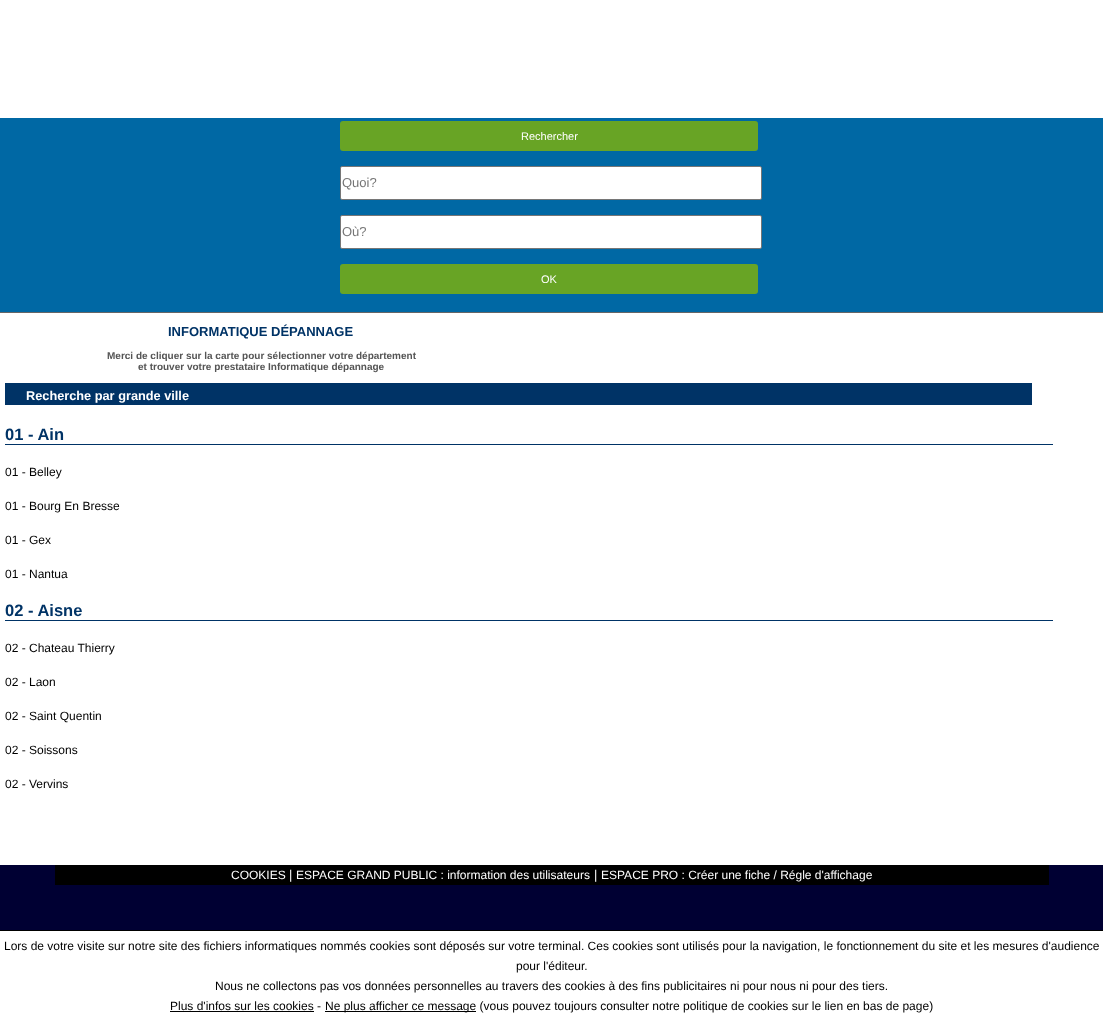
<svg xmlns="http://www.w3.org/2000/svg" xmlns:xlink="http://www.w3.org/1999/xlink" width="1103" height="1021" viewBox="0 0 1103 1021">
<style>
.cls-1{font:11px Liberation Sans;fill:#ffffff}
.cls-2{font:13px Liberation Sans;fill:#757575}
.cls-3{font:bold 13px Liberation Sans;fill:#003366}
.cls-4{font:bold 10px Liberation Sans;fill:#555555}
.cls-5{font:bold 12.75px Liberation Sans;fill:#ffffff}
.cls-6{font:bold 16.5px Liberation Sans;fill:#003366}
.cls-7{font:12px Liberation Sans;fill:#000000}
.cls-8{font:12px Liberation Sans;fill:#ffffff}
.cls-9{font:12.75px Liberation Sans;fill:#ffffff}
</style>
<rect width="100%" height="100%" fill="#000033"/>
<rect fill="#ffffff" x="0" y="0" width="1103" height="865"/>
<rect fill="#0068a4" x="0" y="118" width="1103" height="194"/>
<rect fill="#666666" x="0" y="312" width="1103" height="1"/>
<rect fill="#68a425" x="340" y="121" width="418" height="30" rx="3"/>
<rect fill="#ffffff" stroke="#767676" x="340.5" y="166.5" width="421" height="33" rx="1.5"/>
<rect fill="#ffffff" stroke="#767676" x="340.5" y="215.5" width="421" height="33" rx="1.5"/>
<rect fill="#68a425" x="340" y="264" width="418" height="30" rx="3"/>
<rect fill="#003366" x="5" y="383" width="1027" height="22"/>
<rect fill="#003366" x="5" y="444" width="1048" height="1"/>
<rect fill="#003366" x="5" y="620" width="1048" height="1"/>
<rect fill="#000000" x="55" y="865" width="994" height="20"/>
<rect fill="#ffffff" x="0" y="931" width="1103" height="90"/>
<rect fill="#000000" x="0" y="930" width="1103" height="1"/>
<rect fill="#000000" x="170" y="1011" width="144" height="1"/>
<rect fill="#000000" x="325" y="1011" width="151" height="1"/>
<text class="cls-1" x="521" y="140">Rechercher</text>
<text class="cls-2" x="342" y="187">Quoi?</text>
<text class="cls-2" x="342" y="236">Où?</text>
<text class="cls-1" x="541" y="283">OK</text>
<text class="cls-3" x="168" y="336">INFORMATIQUE DÉPANNAGE</text>
<text class="cls-4" x="107" y="359">Merci de cliquer sur la carte pour sélectionner votre département</text>
<text class="cls-4" x="138" y="370">et trouver votre prestataire Informatique dépannage</text>
<text class="cls-5" x="26" y="400">Recherche par grande ville</text>
<text class="cls-6" x="5" y="440">01 - Ain</text>
<text class="cls-7" x="5" y="476">01 - Belley</text>
<text class="cls-7" x="5" y="510">01 - Bourg En Bresse</text>
<text class="cls-7" x="5" y="544">01 - Gex</text>
<text class="cls-7" x="5" y="578">01 - Nantua</text>
<text class="cls-6" x="5" y="616">02 - Aisne</text>
<text class="cls-7" x="5" y="652">02 - Chateau Thierry</text>
<text class="cls-7" x="5" y="686">02 - Laon</text>
<text class="cls-7" x="5" y="720">02 - Saint Quentin</text>
<text class="cls-7" x="5" y="754">02 - Soissons</text>
<text class="cls-7" x="5" y="788">02 - Vervins</text>
<text class="cls-8" x="231" y="879">COOKIES</text>
<text class="cls-9" x="289" y="879">|</text>
<text class="cls-8" x="296" y="879">ESPACE GRAND PUBLIC : information des utilisateurs</text>
<text class="cls-9" x="594" y="879">|</text>
<text class="cls-8" x="601" y="879">ESPACE PRO : Créer une fiche / Régle d'affichage</text>
<text class="cls-7" x="4" y="950">Lors de votre visite sur notre site des fichiers informatiques nommés cookies sont déposés sur votre terminal. Ces cookies sont utilisés pour la navigation, le fonctionnement du site et les mesures d'audience</text>
<text class="cls-7" x="516" y="970">pour l'éditeur.</text>
<text class="cls-7" x="215" y="990">Nous ne collectons pas vos données personnelles au travers des cookies à des fins publicitaires ni pour nous ni pour des tiers.</text>
<text class="cls-7" x="170" y="1010">Plus d'infos sur les cookies -</text>
<text class="cls-7" x="325" y="1010">Ne plus afficher ce message (vous pouvez toujours consulter notre politique de cookies sur le lien en bas de page)</text>
</svg>
